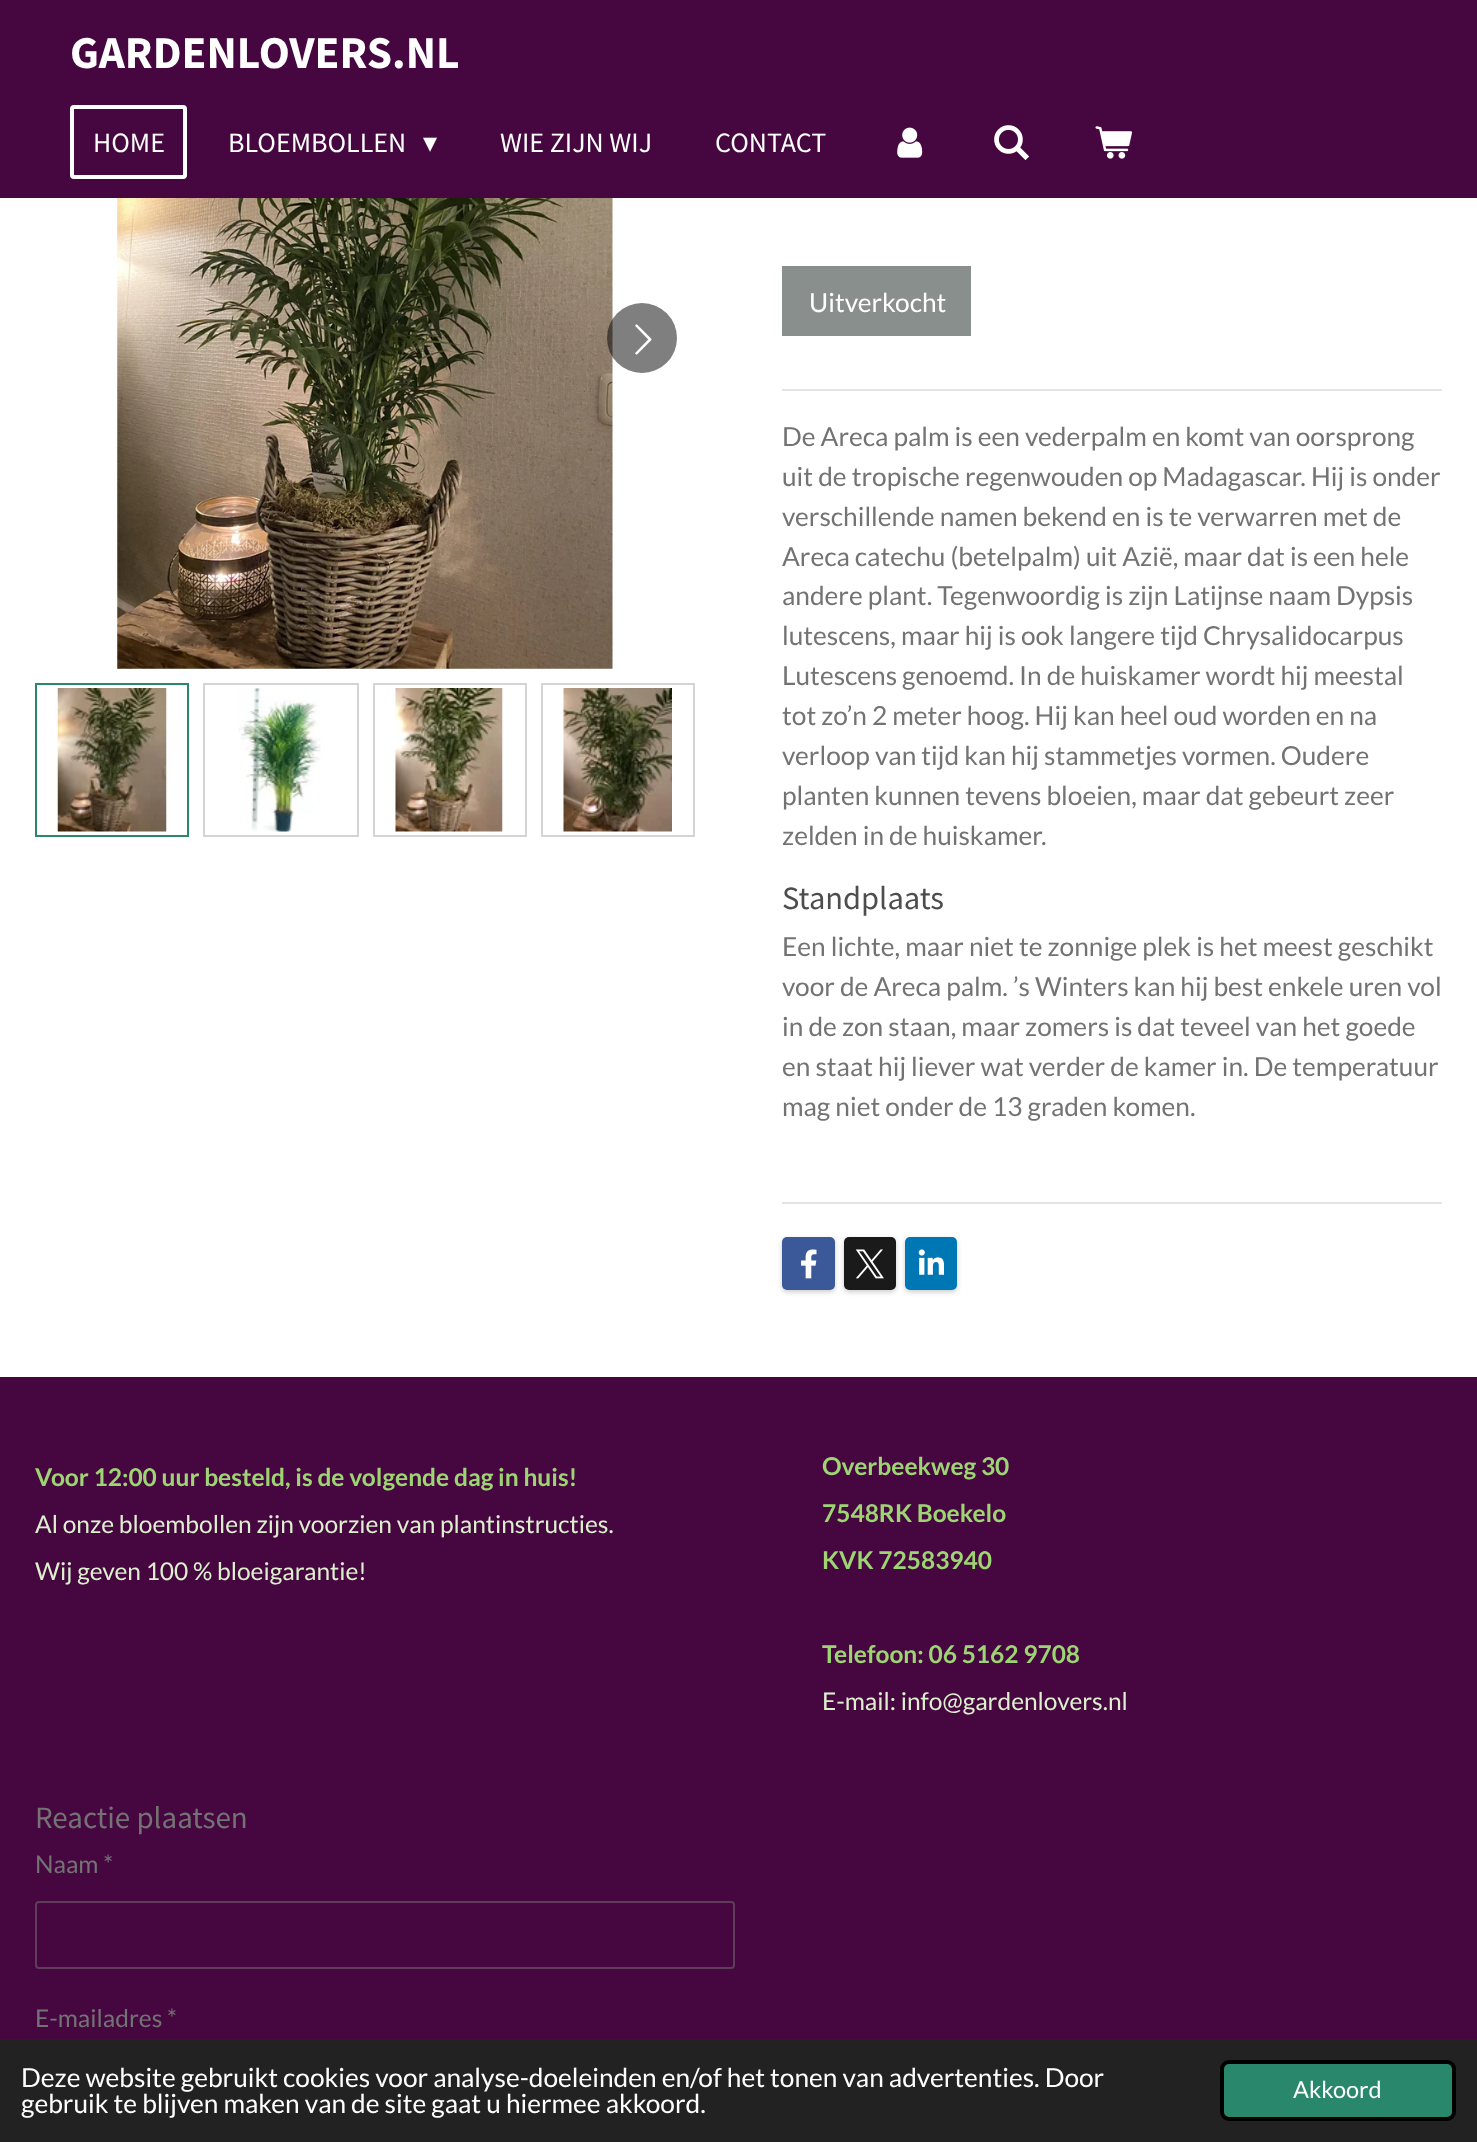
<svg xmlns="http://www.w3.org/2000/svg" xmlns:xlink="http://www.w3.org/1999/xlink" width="1477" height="2142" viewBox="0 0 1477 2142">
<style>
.cls-1{font:bold 45.5px Source Sans Pro;fill:#ffffff}
.cls-2{font:28px Source Sans Pro;fill:#ffffff}
.cls-3{font:28px DejaVu Sans;fill:#ffffff}
.cls-4{font:26.25px Lato;fill:#ffffff}
.cls-5{font:26.25px Lato;fill:#737373}
.cls-6{font:32.5px Source Sans Pro;fill:#4d4d4d}
.cls-7{font:bold 24.5px Lato;fill:#9dd573}
.cls-8{font:24.5px Lato;fill:#ddf0ce}
.cls-9{font:31px Source Sans Pro;fill:#737373}
.cls-10{font:24.5px Lato;fill:#737373}
.cls-11{font:23.5px Lato;fill:#ffffff}
</style>
<rect width="100%" height="100%" fill="#ffffff"/>
<rect fill="#460741" x="0" y="0" width="1477" height="198"/>
<rect fill="none" stroke="#ffffff" stroke-width="4" x="72" y="107" width="113" height="70" rx="2"/>
<image xlink:href="image0.png" x="897" y="127" width="26" height="31"/>
<image xlink:href="image1.png" x="994" y="125" width="36" height="36"/>
<image xlink:href="image2.png" x="1095" y="126" width="37" height="33"/>
<image xlink:href="image3.png" x="117" y="198" width="496" height="471"/>
<circle fill="#000000" fill-opacity="0.5" cx="642" cy="338" r="35"/>
<image xlink:href="image4.png" x="635" y="324" width="17" height="31"/>
<rect fill="none" stroke="#29876b" stroke-width="2" x="36" y="684" width="152" height="152"/>
<image xlink:href="image5.png" x="57" y="688" width="110" height="144"/>
<rect fill="none" stroke="#d5d5d5" stroke-width="2" x="204" y="684" width="154" height="152"/>
<image xlink:href="image6.png" x="238" y="688" width="83" height="144"/>
<rect fill="none" stroke="#d5d5d5" stroke-width="2" x="374" y="684" width="152" height="152"/>
<image xlink:href="image7.png" x="395" y="688" width="108" height="144"/>
<rect fill="none" stroke="#d5d5d5" stroke-width="2" x="542" y="684" width="152" height="152"/>
<image xlink:href="image8.png" x="563" y="688" width="109" height="144"/>
<rect fill="#888f8d" x="782" y="266" width="189" height="70"/>
<rect fill="#e3e3e3" x="782" y="389" width="660" height="2"/>
<rect fill="#e3e3e3" x="782" y="1202" width="660" height="2"/>
<rect fill="#000000" fill-opacity="0.2" filter="blur(2.5px)" x="782" y="1239" width="53" height="53" rx="5"/>
<rect fill="#3b5998" x="782" y="1237" width="53" height="53" rx="5"/>
<image xlink:href="image9.png" x="801" y="1249" width="16" height="30"/>
<rect fill="#000000" fill-opacity="0.2" filter="blur(2.5px)" x="844" y="1239" width="52" height="53" rx="5"/>
<rect fill="#1a1a1a" x="844" y="1237" width="52" height="53" rx="5"/>
<image xlink:href="image10.png" x="855" y="1249" width="29" height="30"/>
<rect fill="#000000" fill-opacity="0.2" filter="blur(2.5px)" x="905" y="1239" width="52" height="53" rx="5"/>
<rect fill="#0077b5" x="905" y="1237" width="52" height="53" rx="5"/>
<image xlink:href="image11.png" x="918" y="1249" width="26" height="26"/>
<rect fill="#460741" x="0" y="1377" width="1477" height="662"/>
<rect fill="none" stroke="#5d3d5a" stroke-width="2" x="36" y="1902" width="698" height="66" rx="3"/>
<rect fill="#222222" x="0" y="2039" width="1477" height="103"/>
<rect fill="#29876b" stroke="#000000" stroke-width="4" x="1222" y="2062" width="232" height="57" rx="7"/>
<text class="cls-1" x="70" y="68">GARDENLOVERS.NL</text>
<text class="cls-2" x="93" y="152">HOME</text>
<text class="cls-2" x="228" y="152">BLOEMBOLLEN</text>
<text class="cls-3" x="423" y="152">▾</text>
<text class="cls-2" x="500" y="152">WIE ZIJN WIJ</text>
<text class="cls-2" x="715" y="152">CONTACT</text>
<text class="cls-4" x="809" y="312">Uitverkocht</text>
<text class="cls-5"><tspan x="782" y="446">De Areca palm is een vederpalm en komt van oorsprong</tspan><tspan x="782" y="486">uit de tropische regenwouden op Madagascar. Hij is onder</tspan><tspan x="782" y="526">verschillende namen bekend en is te verwarren met de</tspan><tspan x="782" y="566">Areca catechu (betelpalm) uit Azië, maar dat is een hele</tspan><tspan x="782" y="605">andere plant. Tegenwoordig is zijn Latijnse naam Dypsis</tspan><tspan x="782" y="645">lutescens, maar hij is ook langere tijd Chrysalidocarpus</tspan><tspan x="782" y="685">Lutescens genoemd. In de huiskamer wordt hij meestal</tspan><tspan x="782" y="725">tot zo’n 2 meter hoog. Hij kan heel oud worden en na</tspan><tspan x="782" y="765">verloop van tijd kan hij stammetjes vormen. Oudere</tspan><tspan x="782" y="805">planten kunnen tevens bloeien, maar dat gebeurt zeer</tspan><tspan x="782" y="845">zelden in de huiskamer.</tspan></text>
<text class="cls-6" x="782" y="909">Standplaats</text>
<text class="cls-5"><tspan x="782" y="956">Een lichte, maar niet te zonnige plek is het meest geschikt</tspan><tspan x="782" y="996">voor de Areca palm. ’s Winters kan hij best enkele uren vol</tspan><tspan x="782" y="1036">in de zon staan, maar zomers is dat teveel van het goede</tspan><tspan x="782" y="1076">en staat hij liever wat verder de kamer in. De temperatuur</tspan><tspan x="782" y="1116">mag niet onder de 13 graden komen.</tspan></text>
<text class="cls-7" x="35" y="1486">Voor 12:00 uur besteld, is de volgende dag in huis!</text>
<text class="cls-8"><tspan x="35" y="1533">Al onze bloembollen zijn voorzien van plantinstructies.</tspan><tspan x="35" y="1580">Wij geven 100 % bloeigarantie!</tspan></text>
<text class="cls-9" x="35" y="1828">Reactie plaatsen</text>
<text class="cls-10" x="35" y="1873">Naam *</text>
<text class="cls-10" x="35" y="2027">E-mailadres *</text>
<text class="cls-7"><tspan x="822" y="1475">Overbeekweg 30</tspan><tspan x="822" y="1522">7548RK Boekelo</tspan><tspan x="822" y="1569">KVK 72583940</tspan></text>
<text class="cls-7" x="822" y="1663">Telefoon: 06 5162 9708</text>
<text class="cls-8" x="822" y="1710">E-mail: info@gardenlovers.nl</text>
<text class="cls-4"><tspan x="21" y="2087">Deze website gebruikt cookies voor analyse-doeleinden en/of het tonen van advertenties. Door</tspan><tspan x="21" y="2113">gebruik te blijven maken van de site gaat u hiermee akkoord.</tspan></text>
<text class="cls-11" x="1293" y="2098">Akkoord</text>
</svg>
